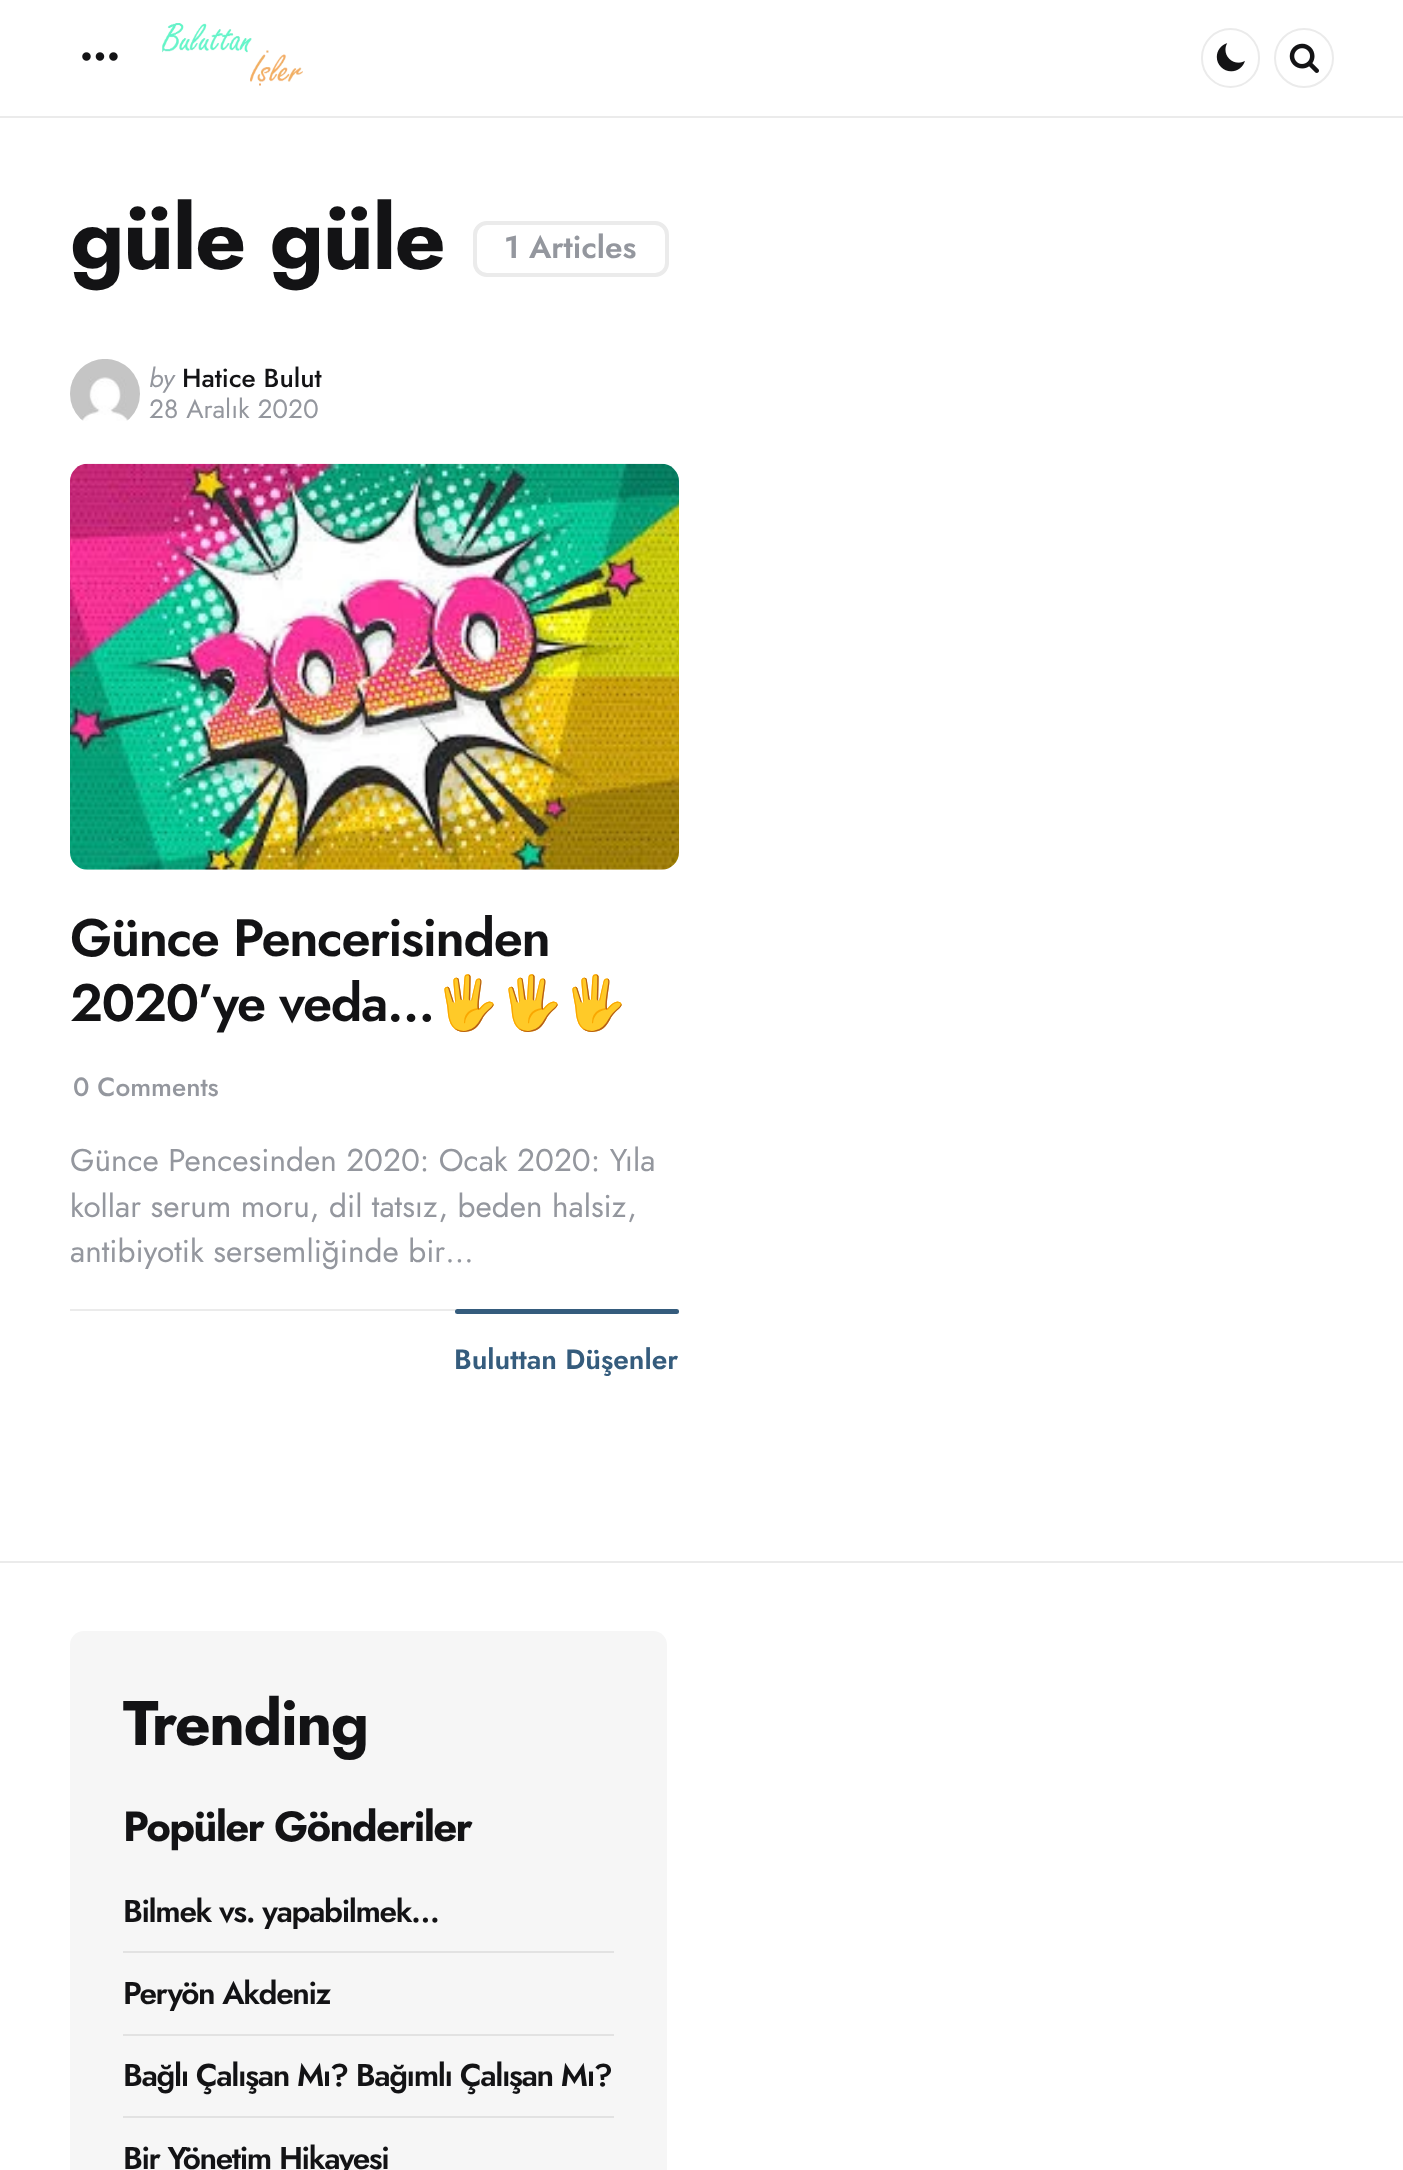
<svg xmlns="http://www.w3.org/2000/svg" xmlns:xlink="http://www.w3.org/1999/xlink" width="1403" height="2170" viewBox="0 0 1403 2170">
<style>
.cls-1{font:bold 89.5px Jost;letter-spacing:-1.75px;fill:#131315}
.cls-2{font:600 31.5px Jost;fill:#94979e}
.cls-3{font:italic 26.25px Jost;fill:#94979e}
.cls-4{font:500 26.25px Jost;fill:#131315}
.cls-5{font:26.25px Jost;fill:#94979e}
.cls-6{font:600 52.5px Jost;letter-spacing:-1.4px;fill:#131315}
.cls-7{font:bold 52.5px Noto Color Emoji;letter-spacing:-1.4px;fill:#131315}
.cls-8{font:500 26.25px Jost;fill:#94979e}
.cls-9{font:31.5px Jost;fill:#94979e}
.cls-10{font:600 28px Jost;fill:#355c7d}
.cls-11{font:bold 63px Jost;letter-spacing:-1.75px;fill:#131315}
.cls-12{font:bold 42px Jost;letter-spacing:-1.75px;fill:#131315}
.cls-13{font:600 31.5px Jost;letter-spacing:-1.4px;fill:#131315}
</style>
<rect width="100%" height="100%" fill="#ffffff"/>
<rect fill="#ebebeb" x="0" y="116" width="1403" height="2"/>
<image xlink:href="image0.png" x="82" y="52" width="36" height="9"/>
<image xlink:href="image1.png" x="162" y="23" width="141" height="63"/>
<image xlink:href="image2.png" x="1216" y="43" width="29" height="29"/>
<rect fill="none" stroke="#ebebeb" stroke-width="2" x="1202" y="29" width="57" height="58" rx="28.5"/>
<image xlink:href="image3.png" x="1289" y="43" width="30" height="30"/>
<circle fill="none" stroke="#ebebeb" stroke-width="2" cx="1304" cy="58" r="29"/>
<rect fill="none" stroke="#ebebeb" stroke-width="4" x="475" y="223" width="192" height="52" rx="12"/>
<image xlink:href="image4.png" x="70" y="359" width="70" height="62"/>
<image xlink:href="image5.png" x="70" y="463" width="609" height="407"/>
<rect fill="#ebebeb" x="70" y="1309" width="609" height="2"/>
<rect fill="#355c7d" x="455" y="1309" width="224" height="5" rx="2.5"/>
<rect fill="#ebebeb" x="0" y="1561" width="1403" height="2"/>
<rect fill="#f6f6f6" x="70" y="1631" width="597" height="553" rx="14"/>
<rect fill="#e2e2e2" x="123" y="1951" width="491" height="2"/>
<rect fill="#e2e2e2" x="123" y="2034" width="491" height="2"/>
<rect fill="#e2e2e2" x="123" y="2116" width="491" height="2"/>
<text class="cls-1" x="70" y="269">güle güle</text>
<text class="cls-2" x="504" y="258">1 Articles</text>
<text class="cls-3" x="149" y="387">by</text>
<text class="cls-4" x="182" y="387">Hatice Bulut</text>
<text class="cls-5" x="149" y="418">28 Aralık 2020</text>
<text class="cls-6"><tspan x="70" y="956">Günce Pencerisinden</tspan><tspan x="70" y="1021">2020’ye veda…</tspan></text>
<text class="cls-7" x="434" y="1021">🖐🖐🖐</text>
<text class="cls-8" x="73" y="1096">0 Comments</text>
<text class="cls-9"><tspan x="70" y="1171">Günce Pencesinden 2020: Ocak 2020: Yıla</tspan><tspan x="70" y="1217">kollar serum moru, dil tatsız, beden halsiz,</tspan><tspan x="70" y="1262">antibiyotik sersemliğinde bir…</tspan></text>
<text class="cls-10" x="454" y="1369">Buluttan Düşenler</text>
<text class="cls-11" x="123" y="1745">Trending</text>
<text class="cls-12" x="123" y="1841">Popüler Gönderiler</text>
<text class="cls-13" x="123" y="1922">Bilmek vs. yapabilmek…</text>
<text class="cls-13" x="123" y="2004">Peryön Akdeniz</text>
<text class="cls-13" x="123" y="2086">Bağlı Çalışan Mı? Bağımlı Çalışan Mı?</text>
<text class="cls-13" x="123" y="2169">Bir Yönetim Hikayesi</text>
</svg>
